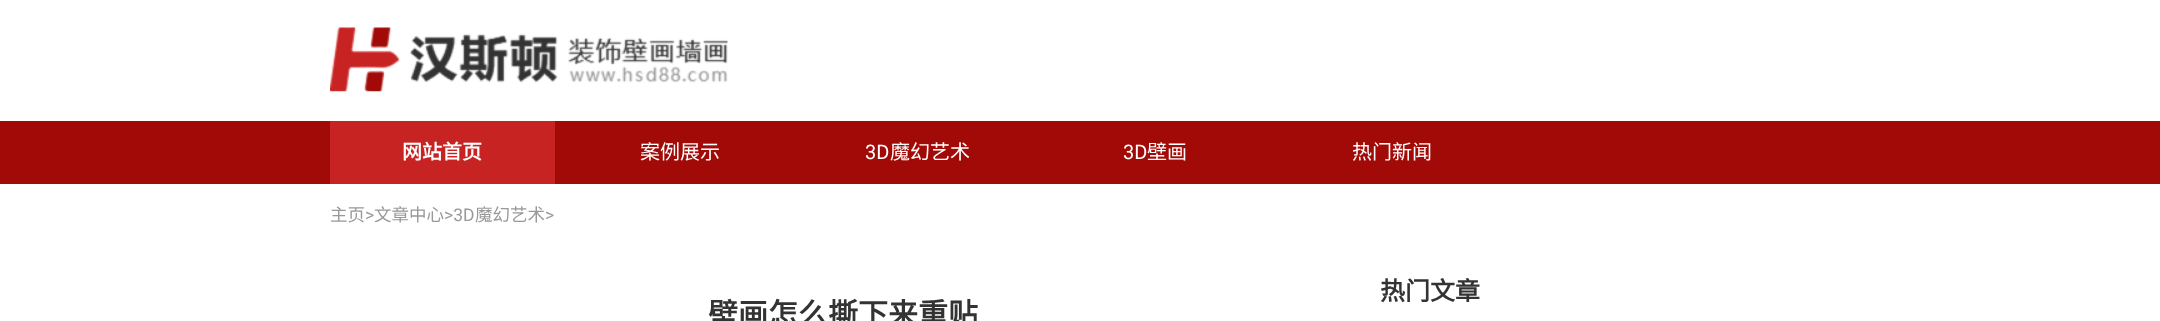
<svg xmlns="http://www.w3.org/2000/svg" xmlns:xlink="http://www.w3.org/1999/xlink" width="2160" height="321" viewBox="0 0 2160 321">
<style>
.cls-1{font:bold 20px Noto Sans CJK SC;fill:#ffffff}
.cls-2{font:20px Noto Sans CJK SC;fill:#ffffff}
.cls-3{font:20px Roboto;fill:#ffffff}
.cls-4{font:17.5px Noto Sans CJK SC;fill:#999999}
.cls-5{font:17.5px Roboto;fill:#999999}
.cls-6{font:bold 25px Noto Sans CJK SC;fill:#333333}
.cls-7{font:bold 30px Noto Sans CJK SC;fill:#333333}
</style>
<rect width="100%" height="100%" fill="#ffffff"/>
<image xlink:href="image0.png" x="330" y="27" width="398" height="65"/>
<rect fill="#a10a06" x="0" y="121" width="2160" height="63"/>
<rect fill="#c82323" x="330" y="121" width="225" height="63"/>
<text class="cls-1" x="402" y="159">网站首页</text>
<text class="cls-2" x="640" y="159">案例展示</text>
<text class="cls-3" x="865" y="159">3D</text>
<text class="cls-2" x="890" y="159">魔幻艺术</text>
<text class="cls-3" x="1123" y="159">3D</text>
<text class="cls-2" x="1147" y="159">壁画</text>
<text class="cls-2" x="1352" y="159">热门新闻</text>
<text class="cls-4" x="330" y="221">主页</text>
<text class="cls-5" x="365" y="221">&gt;</text>
<text class="cls-4" x="374" y="221">文章中心</text>
<text class="cls-5" x="444" y="221">&gt;3D</text>
<text class="cls-4" x="475" y="221">魔幻艺术</text>
<text class="cls-5" x="545" y="221">&gt;</text>
<text class="cls-6" x="1380" y="300">热门文章</text>
<text class="cls-7" x="708" y="325">壁画怎么撕下来重贴</text>
</svg>
